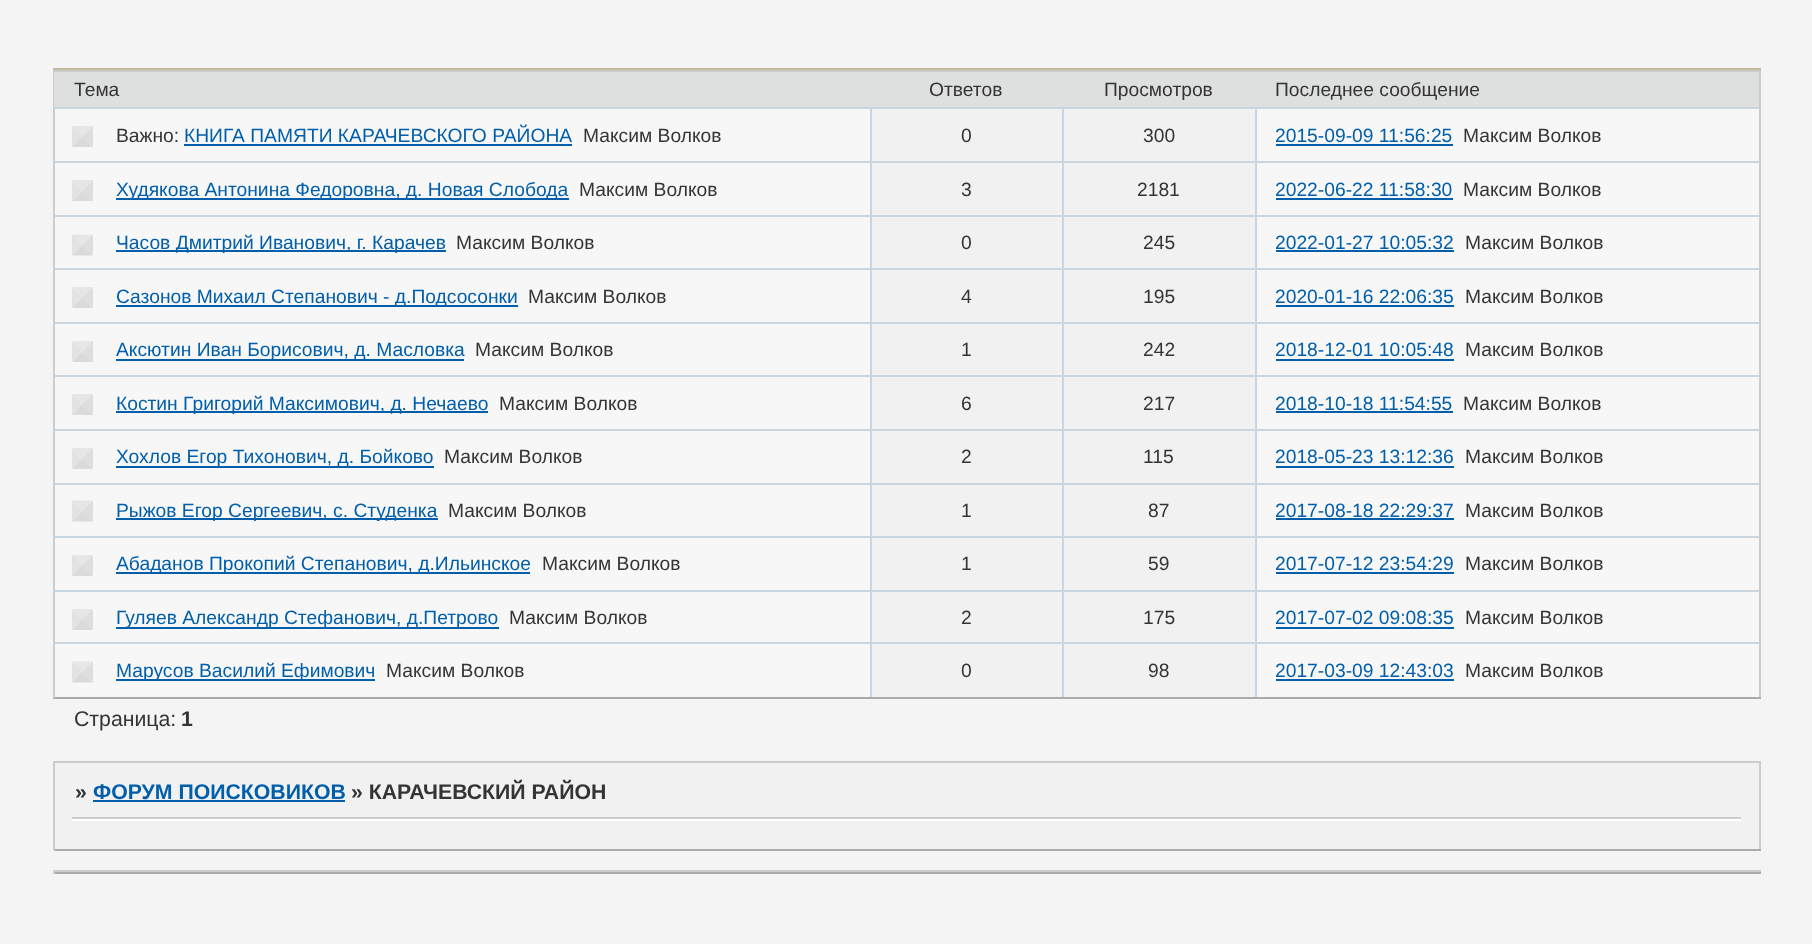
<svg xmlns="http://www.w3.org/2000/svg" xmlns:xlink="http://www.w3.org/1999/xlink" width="1812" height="944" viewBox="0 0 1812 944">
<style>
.cls-1{font:19.25px Liberation Sans;fill:#343434}
.cls-2{font:19.25px Liberation Sans;fill:#005eab}
.cls-3{font:21.25px Liberation Sans;fill:#343434}
.cls-4{font:bold 21.25px Liberation Sans;fill:#343434}
.cls-5{font:bold 21.25px Liberation Sans;fill:#005eab}
</style>
<rect width="100%" height="100%" fill="#f4f4f4"/>
<rect fill="#c4bb9b" x="53" y="68" width="1708" height="2"/>
<rect fill="#f7f7f7" x="55" y="109" width="1704" height="588"/>
<rect fill="#cccccc" x="53" y="70" width="1708" height="2"/>
<rect fill="#cccccc" x="1759" y="70" width="2" height="628"/>
<rect fill="#aaaaaa" x="53" y="697" width="1708" height="2"/>
<rect fill="#cccccc" x="53" y="70" width="2" height="628"/>
<rect fill="#dedfdf" x="54" y="72" width="1705" height="35"/>
<path fill="#e6e6e6" d="M72 126H93L82 136.5Z"/>
<path fill="#dedede" d="M93 126V147L82 136.5Z"/>
<path fill="#dadada" d="M93 147H72L82 136.5Z"/>
<path fill="#e2e2e2" d="M72 147V126L82 136.5Z"/>
<rect fill="#005eab" x="184" y="144" width="388" height="2"/>
<rect fill="#f1f1f1" x="872" y="109" width="190" height="52"/>
<rect fill="#c9d6e0" x="54" y="107" width="1705" height="2"/>
<rect fill="#c9d6e0" x="870" y="107" width="2" height="54"/>
<rect fill="#f1f1f1" x="1064" y="109" width="191" height="52"/>
<rect fill="#c9d6e0" x="1062" y="107" width="2" height="54"/>
<rect fill="#c9d6e0" x="54" y="161" width="1705" height="2"/>
<rect fill="#c9d6e0" x="54" y="215" width="1705" height="2"/>
<rect fill="#c9d6e0" x="54" y="268" width="1705" height="2"/>
<rect fill="#c9d6e0" x="54" y="322" width="1705" height="2"/>
<rect fill="#c9d6e0" x="54" y="375" width="1705" height="2"/>
<rect fill="#c9d6e0" x="54" y="429" width="1705" height="2"/>
<rect fill="#c9d6e0" x="54" y="483" width="1705" height="2"/>
<rect fill="#c9d6e0" x="54" y="536" width="1705" height="2"/>
<rect fill="#c9d6e0" x="54" y="590" width="1705" height="2"/>
<rect fill="#c9d6e0" x="54" y="642" width="1705" height="2"/>
<rect fill="#c9d6e0" x="1255" y="107" width="2" height="590"/>
<rect fill="#005eab" x="1276" y="144" width="177" height="2"/>
<path fill="#e6e6e6" d="M72 180H93L82 191Z"/>
<path fill="#dedede" d="M93 180V201L82 191Z"/>
<path fill="#dadada" d="M93 201H72L82 191Z"/>
<path fill="#e2e2e2" d="M72 201V180L82 191Z"/>
<rect fill="#005eab" x="116" y="198" width="453" height="2"/>
<rect fill="#f1f1f1" x="872" y="163" width="190" height="52"/>
<rect fill="#c9d6e0" x="870" y="161" width="2" height="54"/>
<rect fill="#f1f1f1" x="1064" y="163" width="191" height="52"/>
<rect fill="#c9d6e0" x="1062" y="161" width="2" height="54"/>
<rect fill="#005eab" x="1276" y="198" width="177" height="2"/>
<path fill="#e6e6e6" d="M72 234.5H93L82 245Z"/>
<path fill="#dedede" d="M93 234.5V255.5L82 245Z"/>
<path fill="#dadada" d="M93 255.5H72L82 245Z"/>
<path fill="#e2e2e2" d="M72 255.5V234.5L82 245Z"/>
<rect fill="#005eab" x="116" y="250" width="330" height="2"/>
<rect fill="#f1f1f1" x="872" y="217" width="190" height="51"/>
<rect fill="#c9d6e0" x="870" y="215" width="2" height="53"/>
<rect fill="#f1f1f1" x="1064" y="217" width="191" height="51"/>
<rect fill="#c9d6e0" x="1062" y="215" width="2" height="53"/>
<rect fill="#005eab" x="1276" y="250" width="178" height="2"/>
<path fill="#e6e6e6" d="M72 287H93L82 297.5Z"/>
<path fill="#dedede" d="M93 287V308L82 297.5Z"/>
<path fill="#dadada" d="M93 308H72L82 297.5Z"/>
<path fill="#e2e2e2" d="M72 308V287L82 297.5Z"/>
<rect fill="#005eab" x="116" y="305" width="402" height="2"/>
<rect fill="#f1f1f1" x="872" y="270" width="190" height="52"/>
<rect fill="#c9d6e0" x="870" y="268" width="2" height="54"/>
<rect fill="#f1f1f1" x="1064" y="270" width="191" height="52"/>
<rect fill="#c9d6e0" x="1062" y="268" width="2" height="54"/>
<rect fill="#005eab" x="1276" y="305" width="178" height="2"/>
<path fill="#e6e6e6" d="M72 341H93L82 352Z"/>
<path fill="#dedede" d="M93 341V362L82 352Z"/>
<path fill="#dadada" d="M93 362H72L82 352Z"/>
<path fill="#e2e2e2" d="M72 362V341L82 352Z"/>
<rect fill="#005eab" x="116" y="359" width="348" height="2"/>
<rect fill="#f1f1f1" x="872" y="324" width="190" height="51"/>
<rect fill="#c9d6e0" x="870" y="322" width="2" height="53"/>
<rect fill="#f1f1f1" x="1064" y="324" width="191" height="51"/>
<rect fill="#c9d6e0" x="1062" y="322" width="2" height="53"/>
<rect fill="#005eab" x="1276" y="359" width="178" height="2"/>
<path fill="#e6e6e6" d="M72 394H93L82 404Z"/>
<path fill="#dedede" d="M93 394V415L82 404Z"/>
<path fill="#dadada" d="M93 415H72L82 404Z"/>
<path fill="#e2e2e2" d="M72 415V394L82 404Z"/>
<rect fill="#005eab" x="116" y="411" width="372" height="2"/>
<rect fill="#f1f1f1" x="872" y="377" width="190" height="52"/>
<rect fill="#c9d6e0" x="870" y="375" width="2" height="54"/>
<rect fill="#f1f1f1" x="1064" y="377" width="191" height="52"/>
<rect fill="#c9d6e0" x="1062" y="375" width="2" height="54"/>
<rect fill="#005eab" x="1276" y="411" width="177" height="2"/>
<path fill="#e6e6e6" d="M72 448H93L82 458.5Z"/>
<path fill="#dedede" d="M93 448V469L82 458.5Z"/>
<path fill="#dadada" d="M93 469H72L82 458.5Z"/>
<path fill="#e2e2e2" d="M72 469V448L82 458.5Z"/>
<rect fill="#005eab" x="116" y="466" width="318" height="2"/>
<rect fill="#f1f1f1" x="872" y="431" width="190" height="52"/>
<rect fill="#c9d6e0" x="870" y="429" width="2" height="54"/>
<rect fill="#f1f1f1" x="1064" y="431" width="191" height="52"/>
<rect fill="#c9d6e0" x="1062" y="429" width="2" height="54"/>
<rect fill="#005eab" x="1276" y="466" width="178" height="2"/>
<path fill="#e6e6e6" d="M72 500.5H93L82 511Z"/>
<path fill="#dedede" d="M93 500.5V521.5L82 511Z"/>
<path fill="#dadada" d="M93 521.5H72L82 511Z"/>
<path fill="#e2e2e2" d="M72 521.5V500.5L82 511Z"/>
<rect fill="#005eab" x="116" y="518" width="322" height="2"/>
<rect fill="#f1f1f1" x="872" y="485" width="190" height="51"/>
<rect fill="#c9d6e0" x="870" y="483" width="2" height="53"/>
<rect fill="#f1f1f1" x="1064" y="485" width="191" height="51"/>
<rect fill="#c9d6e0" x="1062" y="483" width="2" height="53"/>
<rect fill="#005eab" x="1276" y="518" width="178" height="2"/>
<path fill="#e6e6e6" d="M72 555H93L82 565Z"/>
<path fill="#dedede" d="M93 555V576L82 565Z"/>
<path fill="#dadada" d="M93 576H72L82 565Z"/>
<path fill="#e2e2e2" d="M72 576V555L82 565Z"/>
<rect fill="#005eab" x="116" y="572" width="414" height="2"/>
<rect fill="#f1f1f1" x="872" y="538" width="190" height="52"/>
<rect fill="#c9d6e0" x="870" y="536" width="2" height="54"/>
<rect fill="#f1f1f1" x="1064" y="538" width="191" height="52"/>
<rect fill="#c9d6e0" x="1062" y="536" width="2" height="54"/>
<rect fill="#005eab" x="1276" y="572" width="178" height="2"/>
<path fill="#e6e6e6" d="M72 609H93L82 619.5Z"/>
<path fill="#dedede" d="M93 609V630L82 619.5Z"/>
<path fill="#dadada" d="M93 630H72L82 619.5Z"/>
<path fill="#e2e2e2" d="M72 630V609L82 619.5Z"/>
<rect fill="#005eab" x="116" y="627" width="383" height="2"/>
<rect fill="#f1f1f1" x="872" y="592" width="190" height="50"/>
<rect fill="#c9d6e0" x="870" y="590" width="2" height="52"/>
<rect fill="#f1f1f1" x="1064" y="592" width="191" height="50"/>
<rect fill="#c9d6e0" x="1062" y="590" width="2" height="52"/>
<rect fill="#005eab" x="1276" y="627" width="178" height="2"/>
<path fill="#e6e6e6" d="M72 661.5H93L82 672Z"/>
<path fill="#dedede" d="M93 661.5V682.5L82 672Z"/>
<path fill="#dadada" d="M93 682.5H72L82 672Z"/>
<path fill="#e2e2e2" d="M72 682.5V661.5L82 672Z"/>
<rect fill="#005eab" x="116" y="679" width="259" height="2"/>
<rect fill="#f1f1f1" x="872" y="644" width="190" height="53"/>
<rect fill="#c9d6e0" x="870" y="642" width="2" height="55"/>
<rect fill="#f1f1f1" x="1064" y="644" width="191" height="53"/>
<rect fill="#c9d6e0" x="1062" y="642" width="2" height="55"/>
<rect fill="#005eab" x="1276" y="679" width="178" height="2"/>
<rect fill="#f1f1f1" x="55" y="763" width="1704" height="86"/>
<rect fill="#cccccc" x="1759" y="817" width="2" height="34"/>
<rect fill="#aaaaaa" x="53" y="849" width="1708" height="2"/>
<rect fill="#cccccc" x="53" y="817" width="2" height="34"/>
<rect fill="#cccccc" x="53" y="761" width="1708" height="2"/>
<rect fill="#cccccc" x="1759" y="761" width="2" height="60"/>
<rect fill="#cccccc" x="53" y="761" width="2" height="60"/>
<rect fill="#005eab" x="93" y="800" width="252" height="2"/>
<rect fill="#cccccc" x="72" y="817" width="1669" height="2"/>
<rect fill="#ffffff" x="72" y="819" width="1669" height="2"/>
<rect fill="#cccccc" x="53" y="870" width="1708" height="2"/>
<rect fill="#cccccc" x="1759" y="870" width="2" height="4"/>
<rect fill="#aaaaaa" x="53" y="872" width="1708" height="2"/>
<rect fill="#cccccc" x="53" y="870" width="2" height="4"/>
<text class="cls-1" x="74" y="96">Тема</text>
<text class="cls-1" x="929" y="96">Ответов</text>
<text class="cls-1" x="1104" y="96">Просмотров</text>
<text class="cls-1" x="1275" y="96">Последнее сообщение</text>
<text class="cls-1" x="116" y="142">Важно:</text>
<text class="cls-2" x="184" y="142">КНИГА ПАМЯТИ КАРАЧЕВСКОГО РАЙОНА</text>
<text class="cls-1" x="583" y="142">Максим Волков</text>
<text class="cls-1" x="961" y="142">0</text>
<text class="cls-1" x="1143" y="142">300</text>
<text class="cls-2" x="1275" y="142">2015-09-09 11:56:25</text>
<text class="cls-1" x="1463" y="142">Максим Волков</text>
<text class="cls-2" x="116" y="196">Худякова Антонина Федоровна, д. Новая Слобода</text>
<text class="cls-1" x="579" y="196">Максим Волков</text>
<text class="cls-1" x="961" y="196">3</text>
<text class="cls-1" x="1137" y="196">2181</text>
<text class="cls-2" x="1275" y="196">2022-06-22 11:58:30</text>
<text class="cls-1" x="1463" y="196">Максим Волков</text>
<text class="cls-2" x="116" y="249">Часов Дмитрий Иванович, г. Карачев</text>
<text class="cls-1" x="456" y="249">Максим Волков</text>
<text class="cls-1" x="961" y="249">0</text>
<text class="cls-1" x="1143" y="249">245</text>
<text class="cls-2" x="1275" y="249">2022-01-27 10:05:32</text>
<text class="cls-1" x="1465" y="249">Максим Волков</text>
<text class="cls-2" x="116" y="303">Сазонов Михаил Степанович - д.Подсосонки</text>
<text class="cls-1" x="528" y="303">Максим Волков</text>
<text class="cls-1" x="961" y="303">4</text>
<text class="cls-1" x="1143" y="303">195</text>
<text class="cls-2" x="1275" y="303">2020-01-16 22:06:35</text>
<text class="cls-1" x="1465" y="303">Максим Волков</text>
<text class="cls-2" x="116" y="356">Аксютин Иван Борисович, д. Масловка</text>
<text class="cls-1" x="475" y="356">Максим Волков</text>
<text class="cls-1" x="961" y="356">1</text>
<text class="cls-1" x="1143" y="356">242</text>
<text class="cls-2" x="1275" y="356">2018-12-01 10:05:48</text>
<text class="cls-1" x="1465" y="356">Максим Волков</text>
<text class="cls-2" x="116" y="410">Костин Григорий Максимович, д. Нечаево</text>
<text class="cls-1" x="499" y="410">Максим Волков</text>
<text class="cls-1" x="961" y="410">6</text>
<text class="cls-1" x="1143" y="410">217</text>
<text class="cls-2" x="1275" y="410">2018-10-18 11:54:55</text>
<text class="cls-1" x="1463" y="410">Максим Волков</text>
<text class="cls-2" x="116" y="463">Хохлов Егор Тихонович, д. Бойково</text>
<text class="cls-1" x="444" y="463">Максим Волков</text>
<text class="cls-1" x="961" y="463">2</text>
<text class="cls-1" x="1143" y="463">115</text>
<text class="cls-2" x="1275" y="463">2018-05-23 13:12:36</text>
<text class="cls-1" x="1465" y="463">Максим Волков</text>
<text class="cls-2" x="116" y="517">Рыжов Егор Сергеевич, с. Студенка</text>
<text class="cls-1" x="448" y="517">Максим Волков</text>
<text class="cls-1" x="961" y="517">1</text>
<text class="cls-1" x="1148" y="517">87</text>
<text class="cls-2" x="1275" y="517">2017-08-18 22:29:37</text>
<text class="cls-1" x="1465" y="517">Максим Волков</text>
<text class="cls-2" x="116" y="570">Абаданов Прокопий Степанович, д.Ильинское</text>
<text class="cls-1" x="542" y="570">Максим Волков</text>
<text class="cls-1" x="961" y="570">1</text>
<text class="cls-1" x="1148" y="570">59</text>
<text class="cls-2" x="1275" y="570">2017-07-12 23:54:29</text>
<text class="cls-1" x="1465" y="570">Максим Волков</text>
<text class="cls-2" x="116" y="624">Гуляев Александр Стефанович, д.Петрово</text>
<text class="cls-1" x="509" y="624">Максим Волков</text>
<text class="cls-1" x="961" y="624">2</text>
<text class="cls-1" x="1143" y="624">175</text>
<text class="cls-2" x="1275" y="624">2017-07-02 09:08:35</text>
<text class="cls-1" x="1465" y="624">Максим Волков</text>
<text class="cls-2" x="116" y="677">Марусов Василий Ефимович</text>
<text class="cls-1" x="386" y="677">Максим Волков</text>
<text class="cls-1" x="961" y="677">0</text>
<text class="cls-1" x="1148" y="677">98</text>
<text class="cls-2" x="1275" y="677">2017-03-09 12:43:03</text>
<text class="cls-1" x="1465" y="677">Максим Волков</text>
<text class="cls-3" x="74" y="726">Страница:</text>
<text class="cls-4" x="181" y="726">1</text>
<text class="cls-4" x="75" y="799">»</text>
<text class="cls-5" x="93" y="799">ФОРУМ ПОИСКОВИКОВ</text>
<text class="cls-4" x="351" y="799">» КАРАЧЕВСКИЙ РАЙОН</text>
</svg>
